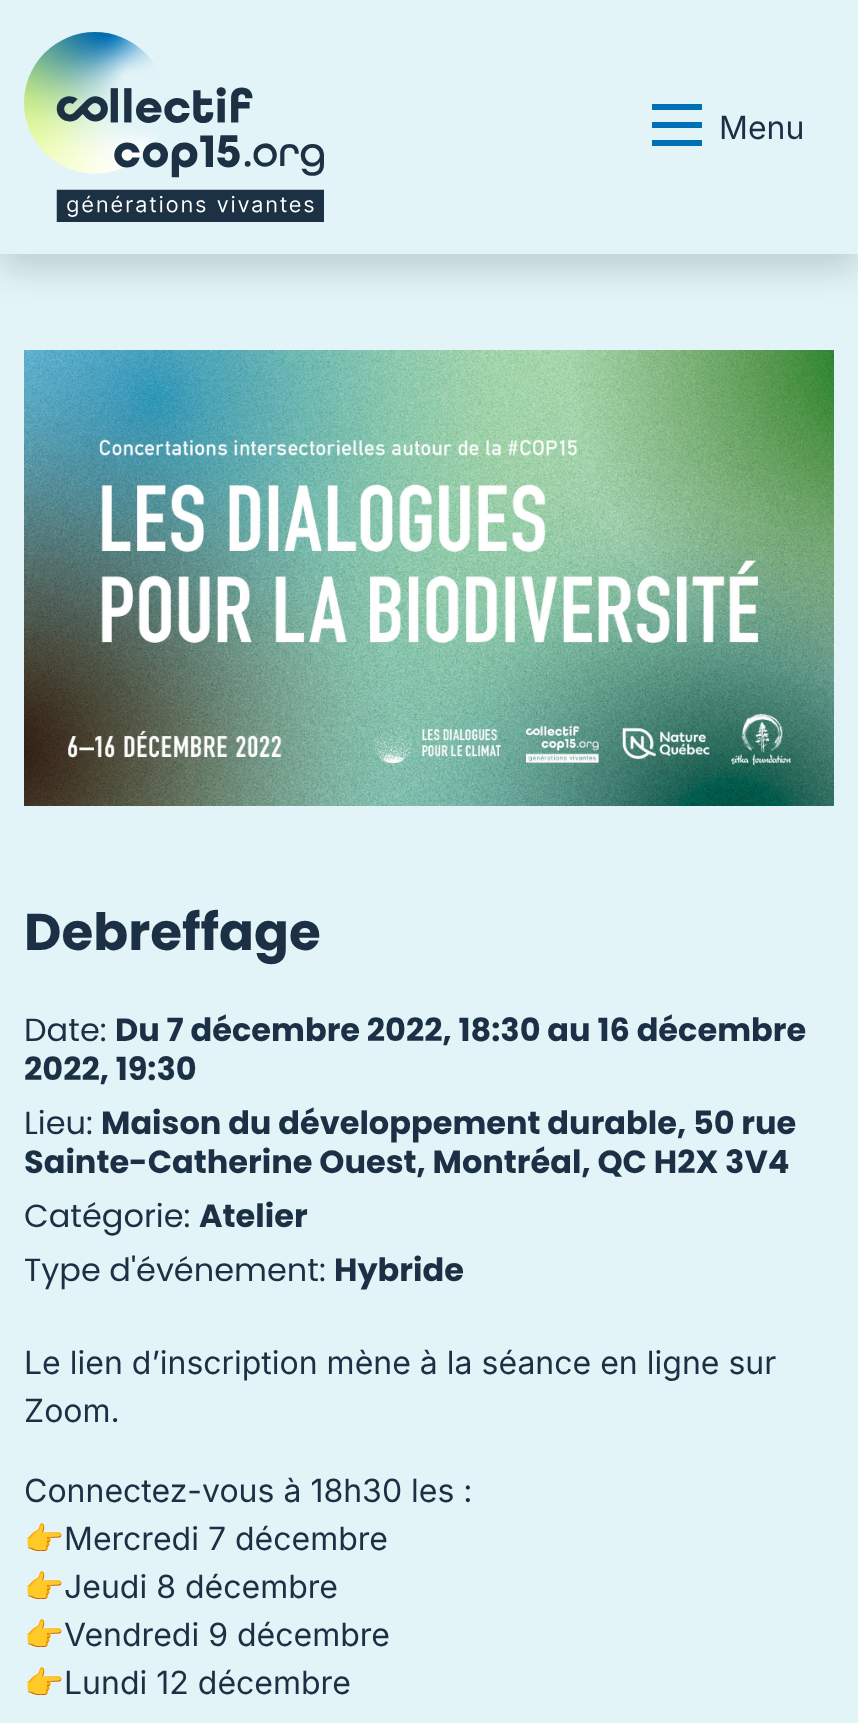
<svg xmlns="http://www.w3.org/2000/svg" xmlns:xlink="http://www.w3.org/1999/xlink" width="858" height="1723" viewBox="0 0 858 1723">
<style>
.cls-1{font:32px Inter;fill:#1c3045}
.cls-2{font:bold 51.5px Poppins;fill:#1c3045}
.cls-3{font:32px Poppins;fill:#1c3045}
.cls-4{font:bold 32px Poppins;fill:#1c3045}
.cls-5{font:32px Noto Color Emoji;fill:#1c3045}
</style>
<rect width="100%" height="100%" fill="#e2f4f7"/>
<rect fill="#000000" fill-opacity="0.15" filter="blur(16px)" x="0" y="16" width="858" height="254"/>
<rect fill="#e2f4f7" x="0" y="0" width="858" height="254"/>
<image xlink:href="image0.png" x="24" y="32" width="300" height="190"/>
<rect fill="#0070b6" x="652" y="122" width="50" height="6"/>
<rect fill="#0070b6" x="652" y="104" width="50" height="6"/>
<rect fill="#0070b6" x="652" y="140" width="50" height="6"/>
<image xlink:href="image1.png" x="24" y="350" width="810" height="456"/>
<text class="cls-1" x="719" y="139">Menu</text>
<text class="cls-2" x="24" y="950">Debreffage</text>
<text class="cls-3" x="24" y="1041">Date:</text>
<text class="cls-4" x="115" y="1041">Du 7 décembre 2022, 18:30 au 16 décembre</text>
<text class="cls-4" x="24" y="1080">2022, 19:30</text>
<text class="cls-3" x="24" y="1134">Lieu:</text>
<text class="cls-4" x="101" y="1134">Maison du développement durable, 50 rue</text>
<text class="cls-4" x="24" y="1173">Sainte-Catherine Ouest, Montréal, QC H2X 3V4</text>
<text class="cls-3" x="24" y="1227">Catégorie:</text>
<text class="cls-4" x="199" y="1227">Atelier</text>
<text class="cls-3" x="24" y="1281">Type d'événement:</text>
<text class="cls-4" x="334" y="1281">Hybride</text>
<text class="cls-1"><tspan x="24" y="1374">Le lien d’inscription mène à la séance en ligne sur</tspan><tspan x="24" y="1422">Zoom.</tspan></text>
<text class="cls-1" x="24" y="1502">Connectez-vous à 18h30 les :</text>
<text class="cls-5" x="24" y="1550">👉</text>
<text class="cls-1" x="64" y="1550">Mercredi 7 décembre</text>
<text class="cls-5" x="24" y="1598">👉</text>
<text class="cls-1" x="64" y="1598">Jeudi 8 décembre</text>
<text class="cls-5" x="24" y="1646">👉</text>
<text class="cls-1" x="64" y="1646">Vendredi 9 décembre</text>
<text class="cls-5" x="24" y="1694">👉</text>
<text class="cls-1" x="64" y="1694">Lundi 12 décembre</text>
</svg>
